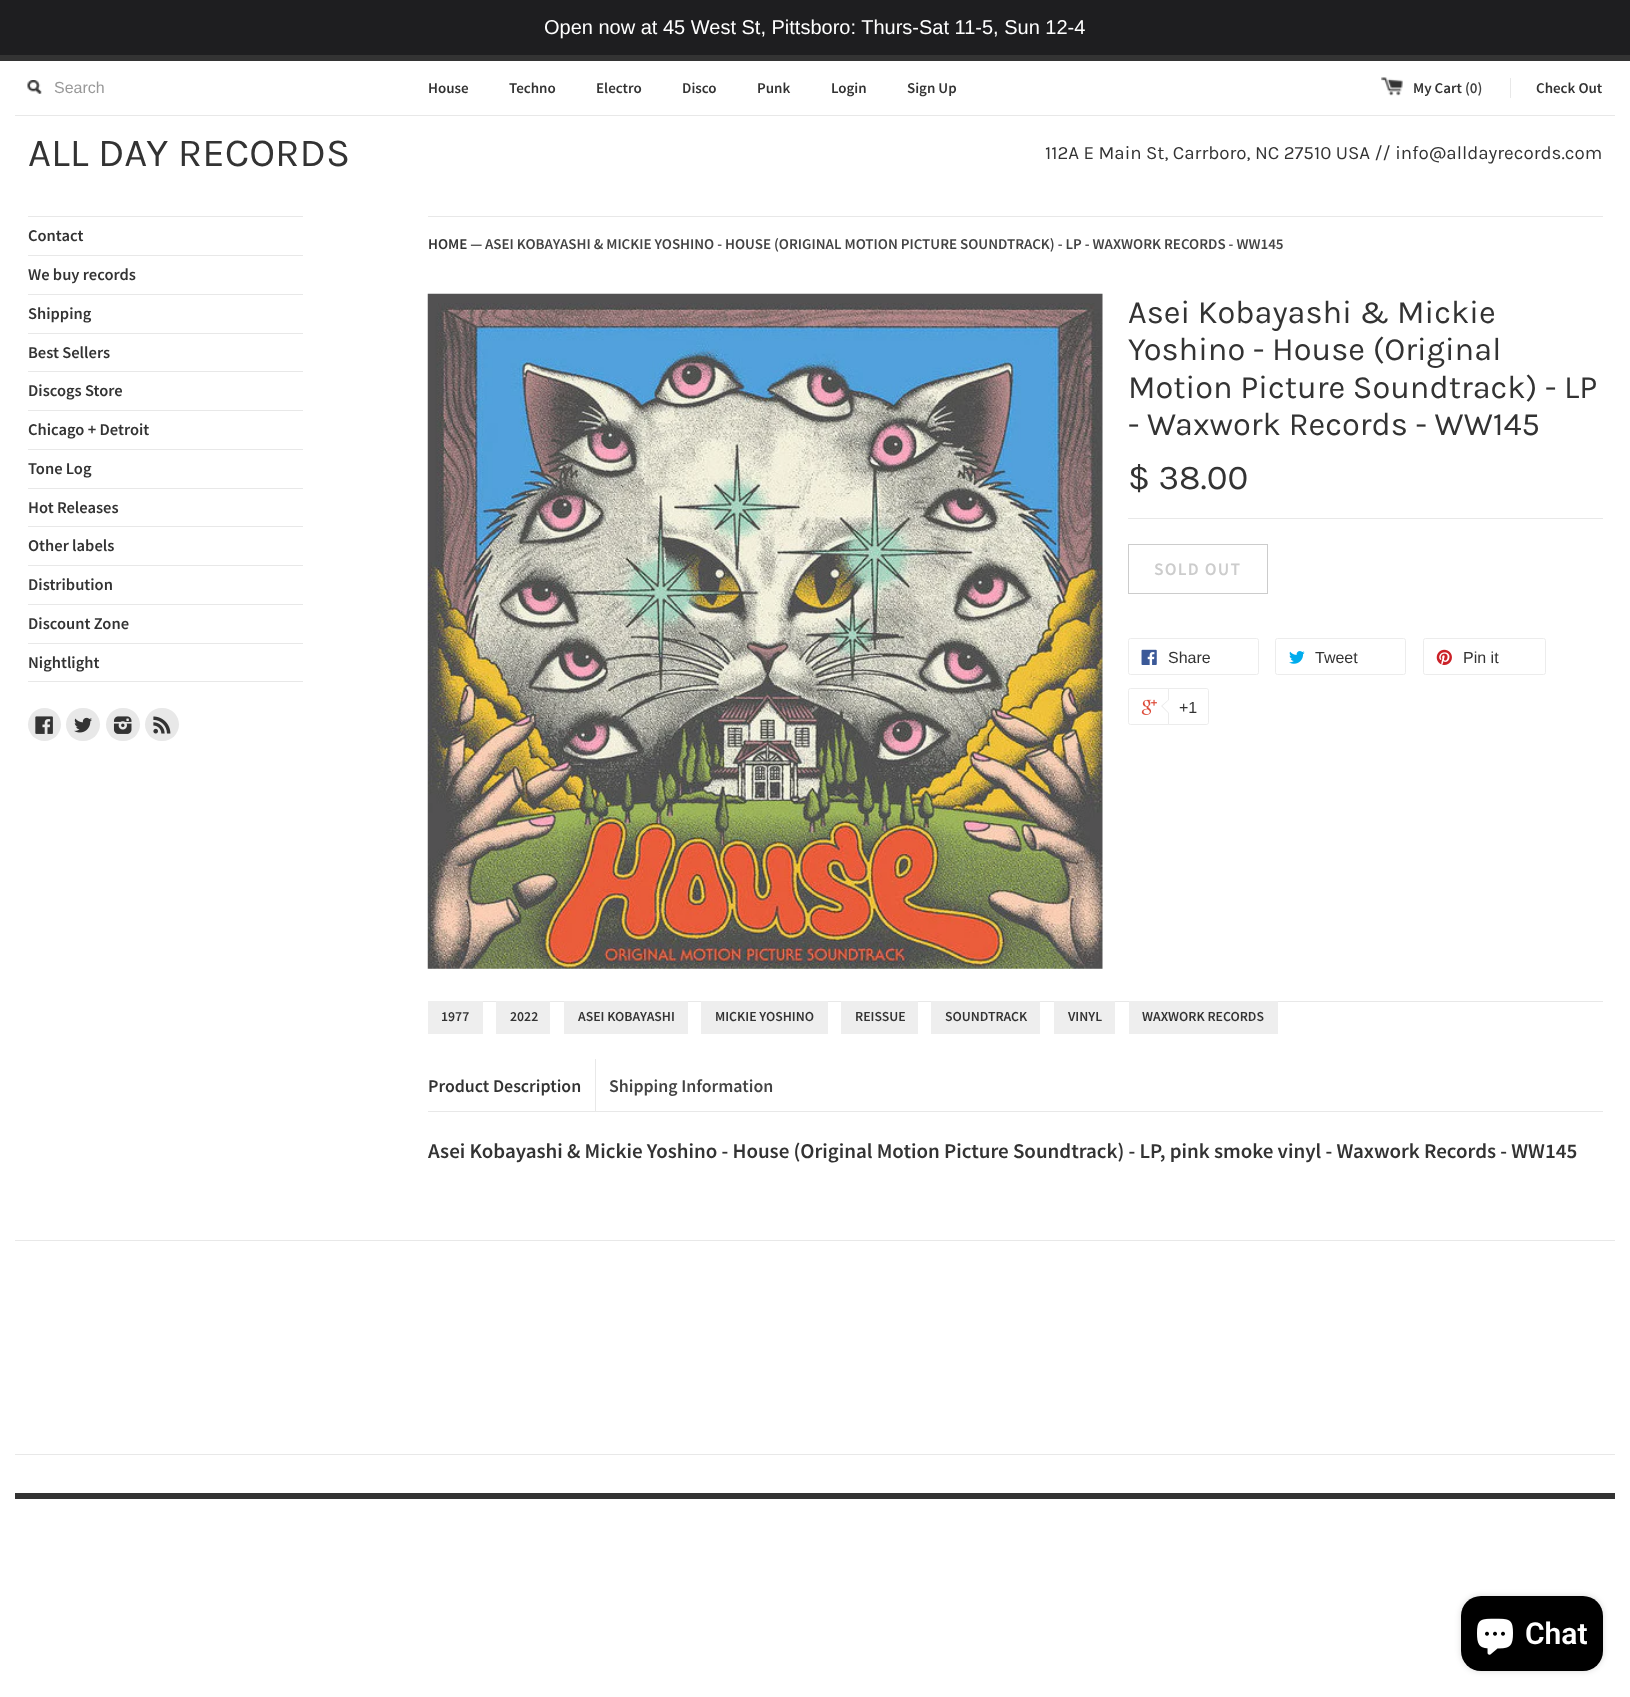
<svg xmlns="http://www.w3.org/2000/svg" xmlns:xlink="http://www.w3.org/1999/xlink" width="1630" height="1697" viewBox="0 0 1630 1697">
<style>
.cls-1{font:20px Liberation Sans;fill:#ffffff}
.cls-2{font:16px Liberation Sans;fill:#999999}
.cls-3{font:600 15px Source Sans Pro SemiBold;fill:#333333}
.cls-4{font:600 15px Source Sans Pro SemiBold;fill:#444444}
.cls-5{font:40px Karla;fill:#333333}
.cls-6{font:18.75px Karla;fill:#333333}
.cls-7{font:600 16.5px Source Sans Pro SemiBold;fill:#333333}
.cls-8{font:32.5px Karla;fill:#333333}
.cls-9{font:35px Karla;fill:#333333}
.cls-10{font:600 17.5px Source Sans Pro SemiBold;letter-spacing:1.25px;fill:#cccccc}
.cls-11{font:16px Liberation Sans;fill:#333333}
.cls-12{font:600 13.75px Source Sans Pro SemiBold;fill:#333333}
.cls-13{font:600 17.9px Source Sans Pro SemiBold;fill:#333333}
.cls-14{font:600 17.9px Source Sans Pro SemiBold;fill:#444444}
.cls-15{font:600 21px Source Sans Pro SemiBold;fill:#333333}
.cls-16{font:600 30px Roboto;fill:#ffffff}
</style>
<rect width="100%" height="100%" fill="#ffffff"/>
<rect fill="#1e1e20" x="0" y="0" width="1630" height="55"/>
<rect fill="#333333" x="0" y="55" width="1630" height="6"/>
<rect fill="#e8e8e8" x="15" y="115" width="1600" height="1"/>
<image xlink:href="image0.png" x="27" y="80" width="15" height="14"/>
<image xlink:href="image1.png" x="1381" y="77" width="22" height="19"/>
<rect fill="#e8e8e8" x="1510" y="78" width="1" height="20"/>
<rect fill="#e8e8e8" x="28" y="681" width="275" height="1"/>
<rect fill="#e8e8e8" x="28" y="216" width="275" height="1"/>
<rect fill="#e8e8e8" x="28" y="255" width="275" height="1"/>
<rect fill="#e8e8e8" x="28" y="294" width="275" height="1"/>
<rect fill="#e8e8e8" x="28" y="333" width="275" height="1"/>
<rect fill="#e8e8e8" x="28" y="371" width="275" height="1"/>
<rect fill="#e8e8e8" x="28" y="410" width="275" height="1"/>
<rect fill="#e8e8e8" x="28" y="449" width="275" height="1"/>
<rect fill="#e8e8e8" x="28" y="488" width="275" height="1"/>
<rect fill="#e8e8e8" x="28" y="526" width="275" height="1"/>
<rect fill="#e8e8e8" x="28" y="565" width="275" height="1"/>
<rect fill="#e8e8e8" x="28" y="604" width="275" height="1"/>
<rect fill="#e8e8e8" x="28" y="643" width="275" height="1"/>
<circle fill="#e8e8e8" cx="44.5" cy="724.5" r="16.5"/>
<image xlink:href="image2.png" x="35" y="716" width="18" height="18"/>
<rect fill="#e8e8e8" x="66" y="708" width="34" height="33" rx="16.5"/>
<image xlink:href="image3.png" x="74" y="717" width="18" height="16"/>
<rect fill="#e8e8e8" x="106" y="708" width="34" height="33" rx="16.5"/>
<image xlink:href="image4.png" x="113" y="716" width="19" height="18"/>
<rect fill="#e8e8e8" x="145" y="708" width="34" height="33" rx="16.5"/>
<image xlink:href="image5.png" x="153" y="716" width="18" height="18"/>
<rect fill="#e8e8e8" x="428" y="216" width="1175" height="1"/>
<image xlink:href="image6.png" x="427" y="293" width="676" height="676"/>
<rect fill="#e8e8e8" x="1128" y="518" width="475" height="1"/>
<rect fill="none" stroke="#cccccc" x="1128.5" y="544.5" width="139" height="49"/>
<rect fill="none" stroke="#ececec" x="1128.5" y="638.5" width="130" height="36" rx="2"/>
<image xlink:href="image7.png" x="1141" y="649" width="16" height="16"/>
<rect fill="none" stroke="#ececec" x="1275.5" y="638.5" width="130" height="36" rx="2"/>
<image xlink:href="image8.png" x="1289" y="651" width="16" height="13"/>
<rect fill="none" stroke="#ececec" x="1423.5" y="638.5" width="122" height="36" rx="2"/>
<image xlink:href="image9.png" x="1436" y="649" width="16" height="16"/>
<rect fill="none" stroke="#ececec" x="1128.5" y="688.5" width="79" height="36" rx="2"/>
<image xlink:href="image10.png" x="1141" y="699" width="16" height="16"/>
<path fill="#ffffff" stroke="#ececec" d="M1168.5 688.5H1206.5C1207.5 688.5 1208.5 689.5 1208.5 690.5V722.5C1208.5 723.5 1207.5 724.5 1206.5 724.5H1168.5Z"/>
<path fill="#ececec" d="M1169 699V714L1161 706Z"/>
<path fill="#ffffff" d="M1170 699V714L1162.5 706Z"/>
<rect fill="#e8e8e8" x="483" y="1001" width="1120" height="1"/>
<rect fill="#eeeeee" x="428" y="1001" width="55" height="33"/>
<rect fill="#eeeeee" x="496" y="1001" width="54" height="33"/>
<rect fill="#eeeeee" x="564" y="1001" width="124" height="33"/>
<rect fill="#eeeeee" x="701" y="1001" width="127" height="33"/>
<rect fill="#eeeeee" x="841" y="1001" width="77" height="33"/>
<rect fill="#eeeeee" x="931" y="1001" width="109" height="33"/>
<rect fill="#eeeeee" x="1054" y="1001" width="61" height="33"/>
<rect fill="#eeeeee" x="1129" y="1001" width="149" height="33"/>
<rect fill="#e8e8e8" x="428" y="1111" width="1175" height="1"/>
<rect fill="#e8e8e8" x="595" y="1059" width="1" height="52"/>
<rect fill="#333333" x="15" y="1493" width="1600" height="6"/>
<rect fill="#e8e8e8" x="15" y="1240" width="1600" height="1"/>
<rect fill="#e8e8e8" x="15" y="1454" width="1600" height="1"/>
<rect fill="#000000" fill-opacity="0.15" filter="blur(3px)" x="1461" y="1596" width="142" height="75" rx="20"/>
<rect fill="#000000" x="1461" y="1596" width="142" height="75" rx="20"/>
<image xlink:href="image11.png" x="1477" y="1618" width="36" height="37"/>
<text class="cls-1" x="544" y="34">Open now at 45 West St, Pittsboro: Thurs-Sat 11-5, Sun 12-4</text>
<text class="cls-2" x="54" y="93">Search</text>
<text class="cls-3" x="428" y="93">House</text>
<text class="cls-3" x="509" y="93">Techno</text>
<text class="cls-3" x="596" y="93">Electro</text>
<text class="cls-3" x="682" y="93">Disco</text>
<text class="cls-3" x="757" y="93">Punk</text>
<text class="cls-3" x="831" y="93">Login</text>
<text class="cls-3" x="907" y="93">Sign Up</text>
<text class="cls-3" x="1413" y="93">My Cart</text>
<text class="cls-4" x="1465" y="93">(0)</text>
<text class="cls-3" x="1536" y="93">Check Out</text>
<text class="cls-5" x="28" y="166">ALL DAY RECORDS</text>
<text class="cls-6" x="1045" y="159">112A E Main St, Carrboro, NC 27510 USA // info@alldayrecords.com</text>
<text class="cls-7" x="28" y="241">Contact</text>
<text class="cls-7" x="28" y="280">We buy records</text>
<text class="cls-7" x="28" y="319">Shipping</text>
<text class="cls-7" x="28" y="358">Best Sellers</text>
<text class="cls-7" x="28" y="396">Discogs Store</text>
<text class="cls-7" x="28" y="435">Chicago + Detroit</text>
<text class="cls-7" x="28" y="474">Tone Log</text>
<text class="cls-7" x="28" y="513">Hot Releases</text>
<text class="cls-7" x="28" y="551">Other labels</text>
<text class="cls-7" x="28" y="590">Distribution</text>
<text class="cls-7" x="28" y="629">Discount Zone</text>
<text class="cls-7" x="28" y="668">Nightlight</text>
<text class="cls-3" x="428" y="249">HOME —</text>
<text class="cls-4" x="485" y="249">ASEI KOBAYASHI &amp; MICKIE YOSHINO - HOUSE (ORIGINAL MOTION PICTURE SOUNDTRACK) - LP - WAXWORK RECORDS - WW145</text>
<text class="cls-8"><tspan x="1128" y="323">Asei Kobayashi &amp; Mickie</tspan><tspan x="1128" y="360">Yoshino - House (Original</tspan><tspan x="1128" y="398">Motion Picture Soundtrack) - LP</tspan><tspan x="1128" y="435">- Waxwork Records - WW145</tspan></text>
<text class="cls-9" x="1128" y="489">$ 38.00</text>
<text class="cls-10" x="1154" y="575">SOLD OUT</text>
<text class="cls-11" x="1168" y="663">Share</text>
<text class="cls-11" x="1315" y="663">Tweet</text>
<text class="cls-11" x="1463" y="663">Pin it</text>
<text class="cls-11" x="1179" y="713">+1</text>
<text class="cls-12" x="441" y="1021">1977</text>
<text class="cls-12" x="510" y="1021">2022</text>
<text class="cls-12" x="578" y="1021">ASEI KOBAYASHI</text>
<text class="cls-12" x="715" y="1021">MICKIE YOSHINO</text>
<text class="cls-12" x="855" y="1021">REISSUE</text>
<text class="cls-12" x="945" y="1021">SOUNDTRACK</text>
<text class="cls-12" x="1068" y="1021">VINYL</text>
<text class="cls-12" x="1142" y="1021">WAXWORK RECORDS</text>
<text class="cls-13" x="428" y="1092">Product Description</text>
<text class="cls-14" x="609" y="1092">Shipping Information</text>
<text class="cls-15" x="428" y="1158">Asei Kobayashi &amp; Mickie Yoshino - House (Original Motion Picture Soundtrack) - LP, pink smoke vinyl - Waxwork Records - WW145</text>
<text class="cls-16" x="1525" y="1644">Chat</text>
</svg>
